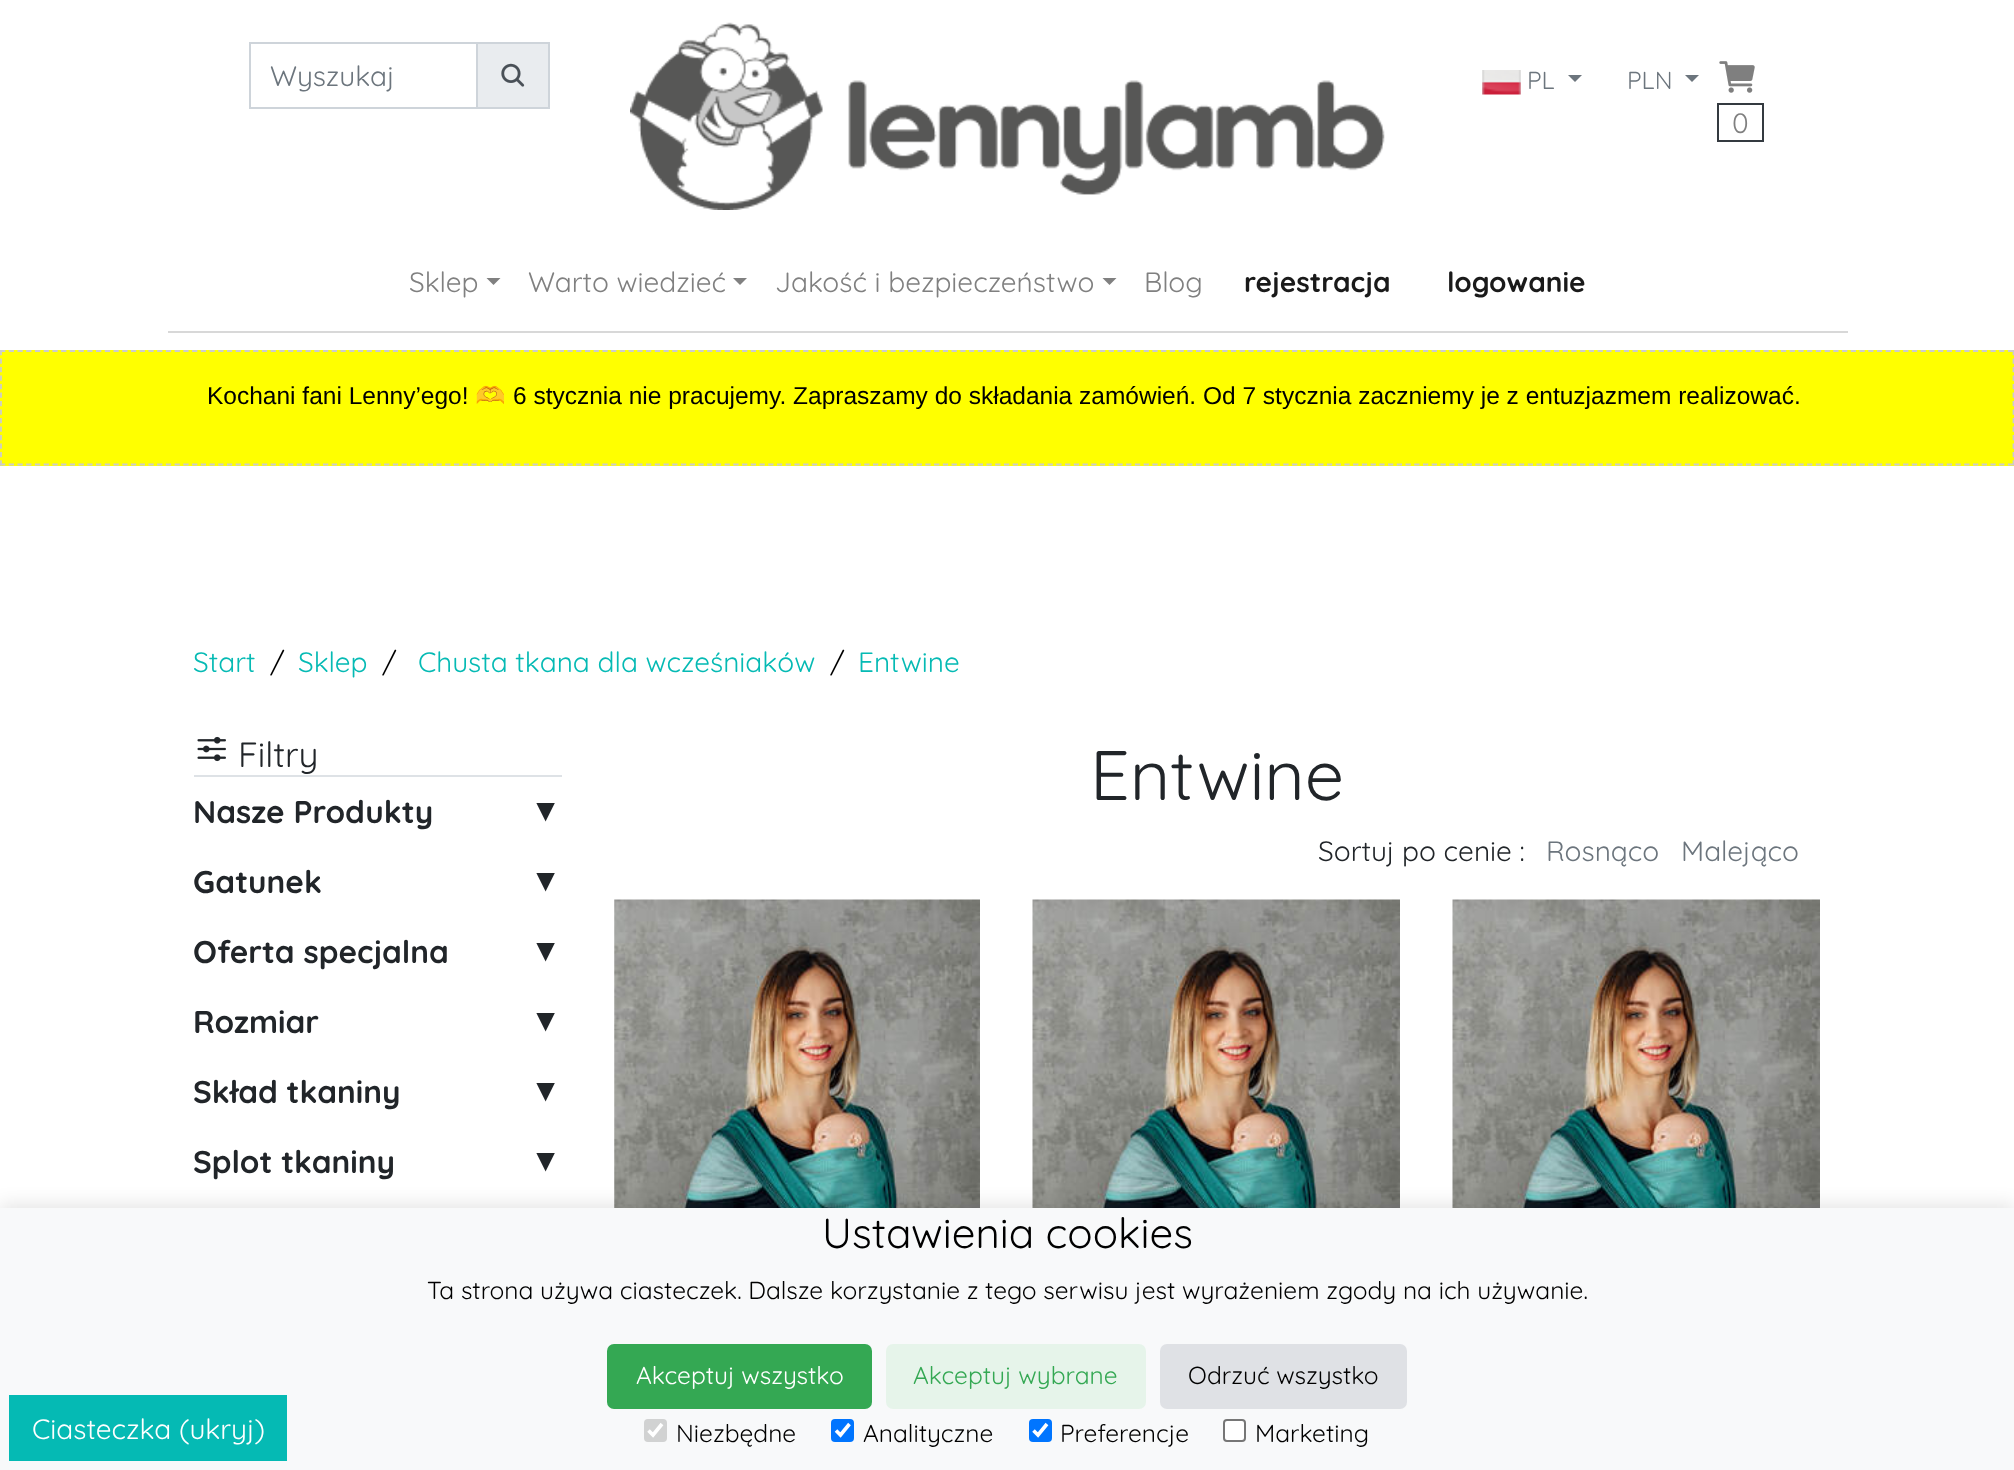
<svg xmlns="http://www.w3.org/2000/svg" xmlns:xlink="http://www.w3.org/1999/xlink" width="2014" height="1470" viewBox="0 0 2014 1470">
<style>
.cls-1{font:28px Quicksand;fill:#6c757d}
.cls-2{font:24.5px Quicksand;fill:#6c757d}
.cls-3{font:28px Quicksand;fill:#808080}
.cls-4{font:bold 28px Quicksand;fill:#1a1a1a}
.cls-5{font:24.5px Liberation Sans;fill:#000000}
.cls-6{font:24.5px Noto Color Emoji;fill:#000000}
.cls-7{font:28px Quicksand;fill:#05bab4}
.cls-8{font:28px Quicksand;fill:#000000}
.cls-9{font:35px Quicksand;fill:#212529}
.cls-10{font:bold 31.5px Quicksand;fill:#212529}
.cls-11{font:bold 31.5px Liberation Sans;fill:#212529}
.cls-12{font:70px Quicksand;fill:#212529}
.cls-13{font:28px Quicksand;fill:#212529}
.cls-14{font:28px Quicksand;fill:#ffffff}
.cls-15{font:42px Quicksand;fill:#000000}
.cls-16{font:24.5px Quicksand;fill:#000000}
.cls-17{font:24.5px Quicksand;fill:#ffffff}
.cls-18{font:24.5px Quicksand;fill:#34a853}
</style>
<rect width="100%" height="100%" fill="#ffffff"/>
<rect fill="#d8d8d8" x="168" y="331" width="1680" height="2"/>
<rect fill="none" stroke="#ced4da" stroke-width="2" x="250" y="43" width="227" height="65"/>
<rect fill="#e9ecef" stroke="#ced4da" stroke-width="2" x="477" y="43" width="72" height="65"/>
<image xlink:href="image0.png" x="501" y="63" width="24" height="24"/>
<image xlink:href="image1.png" x="630" y="22" width="755" height="188"/>
<image xlink:href="image2.png" x="1482" y="70" width="39" height="25"/>
<path fill="#6c757d" d="M1568 75H1582L1575 82Z"/>
<path fill="#6c757d" d="M1685 75H1699L1692 82Z"/>
<image xlink:href="image3.png" x="1719" y="61" width="36" height="32"/>
<rect fill="none" stroke="#343a40" stroke-width="2" x="1718" y="104" width="45" height="37"/>
<path fill="#808080" d="M486.5 278H500.5L493.5 285Z"/>
<path fill="#808080" d="M733 278H747L740 285Z"/>
<path fill="#808080" d="M1102.5 278H1116.5L1109.5 285Z"/>
<rect fill="#ffff00" x="0" y="350" width="2014" height="116"/>
<path fill="none" stroke="#cccccc" stroke-width="1.8" stroke-dasharray="5.25 3.48" d="M0 351H2014"/>
<path fill="none" stroke="#cccccc" stroke-width="1.8" stroke-dasharray="5.25 3.24" d="M2013.5 350V465.5"/>
<path fill="none" stroke="#cccccc" stroke-width="1.8" stroke-dasharray="5.25 3.48" d="M0 464.5H2014"/>
<path fill="none" stroke="#cccccc" stroke-width="1.8" stroke-dasharray="5.25 3.24" d="M1 350V465.5"/>
<rect fill="#dee2e6" x="194" y="775" width="368" height="2"/>
<image xlink:href="image4.png" x="197" y="736" width="29" height="26"/>
<image xlink:href="image5.png" x="614" y="899" width="366" height="309"/>
<image xlink:href="image6.png" x="1032" y="899" width="368" height="309"/>
<image xlink:href="image6.png" x="1452" y="899" width="368" height="309"/>
<rect fill="#000000" fill-opacity="0.1" filter="blur(9px)" x="0" y="1204" width="2014" height="263"/>
<rect fill="#f8f9fa" x="0" y="1208" width="2014" height="262"/>
<rect fill="#05bab4" x="9" y="1395" width="278" height="66"/>
<rect fill="#34a853" x="607" y="1344" width="265" height="65" rx="7"/>
<rect fill="#e6f4ea" x="886" y="1344" width="260" height="65" rx="7"/>
<rect fill="#dfe1e5" x="1160" y="1344" width="247" height="65" rx="7"/>
<rect fill="#d1d2d2" x="644" y="1419" width="23" height="23" rx="4"/>
<path fill="none" stroke="#ffffff" stroke-width="3.6" d="M648.5 1430.5L653 1435L662 1424"/>
<rect fill="#0075ff" x="831" y="1419" width="23" height="23" rx="4"/>
<path fill="none" stroke="#ffffff" stroke-width="3.6" d="M836 1430.5L840.5 1435L849.5 1424"/>
<rect fill="#0075ff" x="1029" y="1419" width="23" height="23" rx="4"/>
<path fill="none" stroke="#ffffff" stroke-width="3.6" d="M1033.5 1430.5L1038 1435L1047 1424"/>
<rect fill="#ffffff" stroke="#767676" stroke-width="2" x="1224" y="1420" width="21" height="21" rx="3"/>
<text class="cls-1" x="270" y="86">Wyszukaj</text>
<text class="cls-2" x="1527" y="89">PL</text>
<text class="cls-2" x="1627" y="89">PLN</text>
<text class="cls-3" x="1732" y="133">0</text>
<text class="cls-3" x="409" y="292">Sklep</text>
<text class="cls-3" x="528" y="292">Warto wiedzieć</text>
<text class="cls-3" x="775" y="292">Jakość i bezpieczeństwo</text>
<text class="cls-3" x="1144" y="292">Blog</text>
<text class="cls-4" x="1244" y="292">rejestracja</text>
<text class="cls-4" x="1447" y="292">logowanie</text>
<text class="cls-5" x="207" y="404">Kochani fani Lenny’ego!</text>
<text class="cls-6" x="475" y="404">🫶</text>
<text class="cls-5" x="513" y="404">6 stycznia nie pracujemy. Zapraszamy do składania zamówień. Od 7 stycznia zaczniemy je z entuzjazmem realizować.</text>
<text class="cls-7" x="193" y="672">Start</text>
<text class="cls-8" x="270" y="672">/</text>
<text class="cls-7" x="298" y="672">Sklep</text>
<text class="cls-8" x="382" y="672">/</text>
<text class="cls-7" x="418" y="672">Chusta tkana dla wcześniaków</text>
<text class="cls-8" x="830" y="672">/</text>
<text class="cls-7" x="858" y="672">Entwine</text>
<text class="cls-9" x="238" y="767">Filtry</text>
<text class="cls-10" x="193" y="823">Nasze Produkty</text>
<text class="cls-11" x="530" y="821">▼</text>
<text class="cls-10" x="193" y="893">Gatunek</text>
<text class="cls-11" x="530" y="891">▼</text>
<text class="cls-10" x="193" y="963">Oferta specjalna</text>
<text class="cls-11" x="530" y="961">▼</text>
<text class="cls-10" x="193" y="1033">Rozmiar</text>
<text class="cls-11" x="530" y="1031">▼</text>
<text class="cls-10" x="193" y="1103">Skład tkaniny</text>
<text class="cls-11" x="530" y="1101">▼</text>
<text class="cls-10" x="193" y="1173">Splot tkaniny</text>
<text class="cls-11" x="530" y="1171">▼</text>
<text class="cls-12" x="1090" y="800">Entwine</text>
<text class="cls-13" x="1318" y="861">Sortuj po cenie :</text>
<text class="cls-1" x="1546" y="861">Rosnąco</text>
<text class="cls-1" x="1681" y="861">Malejąco</text>
<text class="cls-14" x="32" y="1439">Ciasteczka (ukryj)</text>
<text class="cls-15" x="822" y="1248">Ustawienia cookies</text>
<text class="cls-16" x="427" y="1299">Ta strona używa ciasteczek. Dalsze korzystanie z tego serwisu jest wyrażeniem zgody na ich używanie.</text>
<text class="cls-17" x="636" y="1384">Akceptuj wszystko</text>
<text class="cls-18" x="913" y="1384">Akceptuj wybrane</text>
<text class="cls-16" x="1188" y="1384">Odrzuć wszystko</text>
<text class="cls-16" x="676" y="1442">Niezbędne</text>
<text class="cls-16" x="863" y="1442">Analityczne</text>
<text class="cls-16" x="1060" y="1442">Preferencje</text>
<text class="cls-16" x="1255" y="1442">Marketing</text>
</svg>
